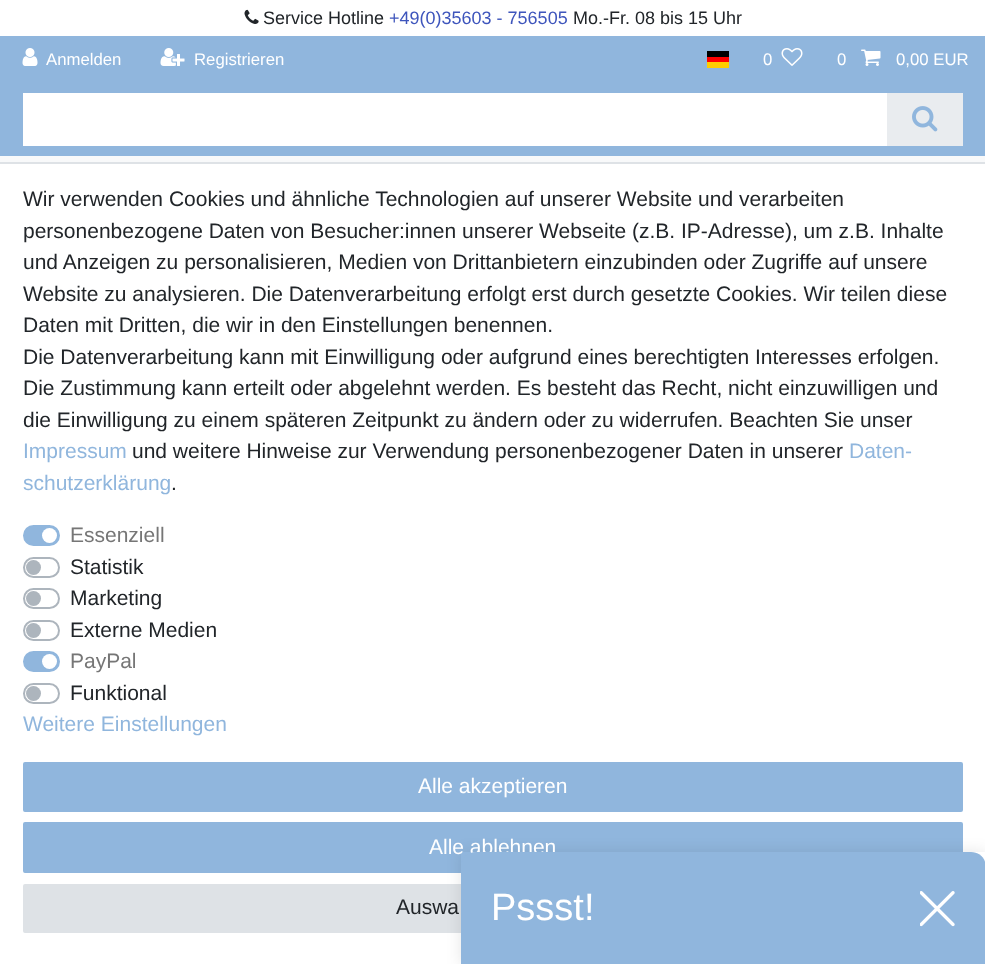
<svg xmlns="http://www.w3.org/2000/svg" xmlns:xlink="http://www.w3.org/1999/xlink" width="985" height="964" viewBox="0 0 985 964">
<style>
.cls-1{font:18px Liberation Sans;fill:#212529}
.cls-2{font:18px Liberation Sans;fill:#3e55bc}
.cls-3{font:16.75px Liberation Sans;fill:#ffffff}
.cls-4{font:21px Liberation Sans;fill:#212529}
.cls-5{font:21px Liberation Sans;fill:#90b6dd}
.cls-6{font:21px Liberation Sans;fill:#767676}
.cls-7{font:21px Liberation Sans;fill:#ffffff}
.cls-8{font:38px Liberation Sans;fill:#ffffff}
</style>
<defs>
<clipPath id="clip1"><path d="M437 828H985V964H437ZM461 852H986V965H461Z" clip-rule="evenodd"/></clipPath>
</defs>
<rect width="100%" height="100%" fill="#ffffff"/>
<image xlink:href="image0.png" x="244" y="9" width="15" height="15"/>
<rect fill="#90b6dd" x="0" y="36" width="985" height="120"/>
<image xlink:href="image1.png" x="22" y="48" width="16" height="18"/>
<image xlink:href="image2.png" x="160" y="48" width="25" height="18"/>
<rect fill="#ffcc00" x="707" y="62" width="22" height="6"/>
<rect fill="#000000" x="707" y="51" width="22" height="6"/>
<rect fill="#ff0000" x="707" y="57" width="22" height="5"/>
<image xlink:href="image3.png" x="781" y="48" width="22" height="18"/>
<image xlink:href="image4.png" x="861" y="49" width="20" height="17"/>
<rect fill="#ffffff" x="23" y="93" width="864" height="53"/>
<rect fill="#e9ecef" x="887" y="93" width="76" height="53"/>
<image xlink:href="image5.png" x="912" y="106" width="26" height="26"/>
<rect fill="#f8f9fa" x="0" y="156" width="985" height="6"/>
<rect fill="#dee2e6" x="0" y="162" width="985" height="2"/>
<rect fill="#90b6dd" stroke="#90b6dd" stroke-width="2" x="24" y="526" width="35" height="19" rx="9.5"/>
<circle fill="#ffffff" cx="49.5" cy="535.5" r="7.5"/>
<rect fill="none" stroke="#adb5bd" stroke-width="2" x="24" y="558" width="35" height="19" rx="9.5"/>
<circle fill="#adb5bd" cx="33.5" cy="567.5" r="7.5"/>
<rect fill="none" stroke="#adb5bd" stroke-width="2" x="24" y="589" width="35" height="19" rx="9.5"/>
<circle fill="#adb5bd" cx="33.5" cy="598.5" r="7.5"/>
<rect fill="none" stroke="#adb5bd" stroke-width="2" x="24" y="621" width="35" height="19" rx="9.5"/>
<circle fill="#adb5bd" cx="33.5" cy="630.5" r="7.5"/>
<rect fill="#90b6dd" stroke="#90b6dd" stroke-width="2" x="24" y="652" width="35" height="19" rx="9.5"/>
<circle fill="#ffffff" cx="49.5" cy="661.5" r="7.5"/>
<rect fill="none" stroke="#adb5bd" stroke-width="2" x="24" y="684" width="35" height="19" rx="9.5"/>
<circle fill="#adb5bd" cx="33.5" cy="693.5" r="7.5"/>
<rect fill="#90b6dd" stroke="#90b6dd" stroke-width="2" x="24" y="763" width="938" height="48" rx="1"/>
<rect fill="#90b6dd" stroke="#90b6dd" stroke-width="2" x="24" y="823" width="938" height="49" rx="1"/>
<rect fill="#dee2e6" stroke="#dee2e6" stroke-width="2" x="24" y="885" width="938" height="47" rx="1"/>
<g clip-path="url(#clip1)">
<rect fill="#000000" fill-opacity="0.1" filter="blur(7.5px)" x="461" y="852" width="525" height="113"/>
</g>
<text class="cls-1" x="263" y="24">Service Hotline</text>
<text class="cls-2" x="389" y="24">+49(0)35603 - 756505</text>
<text class="cls-1" x="573" y="24">Mo.-Fr. 08 bis 15 Uhr</text>
<text class="cls-3" x="46" y="65">Anmelden</text>
<text class="cls-3" x="194" y="65">Registrieren</text>
<text class="cls-3" x="763" y="65">0</text>
<text class="cls-3" x="837" y="65">0</text>
<text class="cls-3" x="896" y="65">0,00 EUR</text>
<text class="cls-4"><tspan x="23" y="206">Wir verwenden Cookies und ähnliche Technologien auf unserer Website und verarbeiten</tspan><tspan x="23" y="238">personenbezogene Daten von Besucher:innen unserer Webseite (z.B. IP-Adresse), um z.B. Inhalte</tspan><tspan x="23" y="269">und Anzeigen zu personalisieren, Medien von Drittanbietern einzubinden oder Zugriffe auf unsere</tspan><tspan x="23" y="301">Website zu analysieren. Die Datenverarbeitung erfolgt erst durch gesetzte Cookies. Wir teilen diese</tspan><tspan x="23" y="332">Daten mit Dritten, die wir in den Einstellungen benennen.</tspan><tspan x="23" y="364">Die Datenverarbeitung kann mit Einwilligung oder aufgrund eines berechtigten Interesses erfolgen.</tspan><tspan x="23" y="395">Die Zustimmung kann erteilt oder abgelehnt werden. Es besteht das Recht, nicht einzuwilligen und</tspan><tspan x="23" y="427">die Einwilligung zu einem späteren Zeitpunkt zu ändern oder zu widerrufen. Beachten Sie unser</tspan></text>
<text class="cls-5" x="23" y="458">Impressum</text>
<text class="cls-4" x="132" y="458">und weitere Hinweise zur Verwendung personenbezogener Daten in unserer</text>
<text class="cls-5" x="849" y="458">Daten-</text>
<text class="cls-5" x="23" y="490">schutzerklärung</text>
<text class="cls-4" x="171" y="490">.</text>
<text class="cls-6" x="70" y="542">Essenziell</text>
<text class="cls-4"><tspan x="70" y="574">Statistik</tspan><tspan x="70" y="605">Marketing</tspan><tspan x="70" y="637">Externe Medien</tspan></text>
<text class="cls-6" x="70" y="668">PayPal</text>
<text class="cls-4" x="70" y="700">Funktional</text>
<text class="cls-5" x="23" y="731">Weitere Einstellungen</text>
<text class="cls-7" x="418" y="793">Alle akzeptieren</text>
<text class="cls-7" x="429" y="854">Alle ablehnen</text>
<text class="cls-4" x="396" y="914">Auswa</text>
<path fill="#90b6dd" d="M476 852H971C979.5 852 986 858.5 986 867V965H461V867C461 858.5 467.5 852 476 852Z"/>
<text class="cls-8" x="491" y="920">Pssst!</text>
<image xlink:href="image6.png" x="920" y="891" width="35" height="36"/>
</svg>
